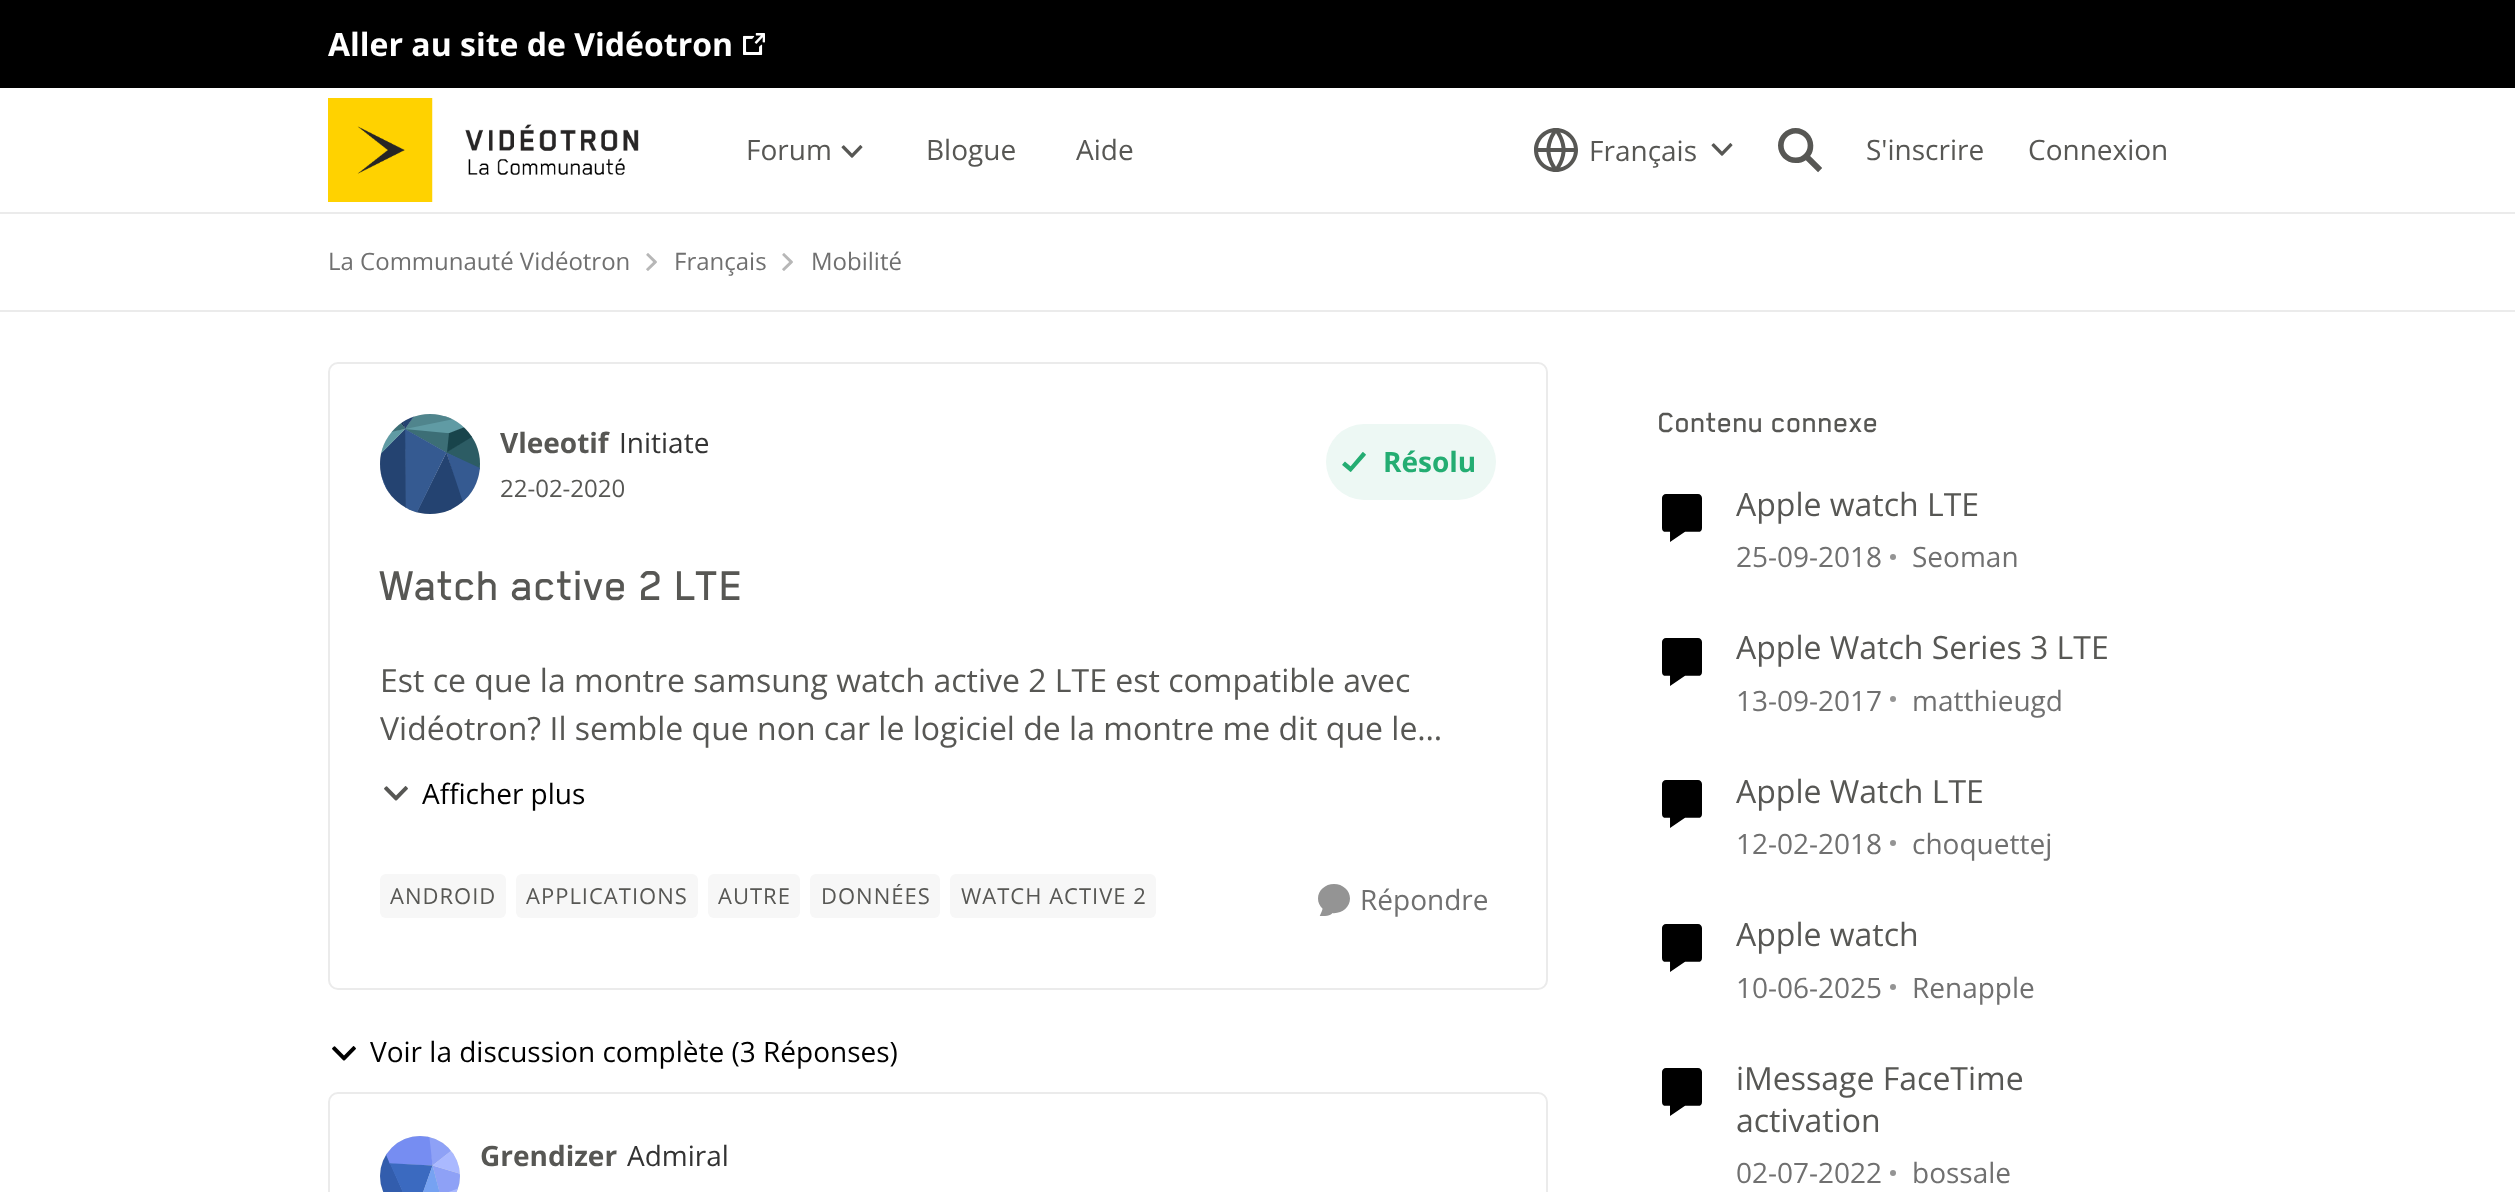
<svg xmlns="http://www.w3.org/2000/svg" xmlns:xlink="http://www.w3.org/1999/xlink" width="2515" height="1192" viewBox="0 0 2515 1192">
<style>
.cls-1{font:bold 32px Open Sans;fill:#ffffff}
.cls-2{font:28px Open Sans;fill:#575754}
.cls-3{font:24px Open Sans;fill:#707070}
.cls-4{font:bold 28px Open Sans;fill:#575754}
.cls-5{font:28px Open Sans;fill:#333333}
.cls-6{font:24px Open Sans;fill:#575754}
.cls-7{font:bold 28px Open Sans;fill:#24ad72}
.cls-8{font:500 48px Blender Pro;fill:#575754}
.cls-9{font:32px Open Sans;fill:#575754}
.cls-10{font:28px Open Sans;fill:#000000}
.cls-11{font:22px Open Sans;letter-spacing:1px;fill:#575754}
.cls-12{font:28px Open Sans;fill:#707070}
.cls-13{font:500 32px Blender Pro;fill:#575754}
</style>
<defs>
<clipPath id="clip1"><rect x="820" y="884" width="110" height="24"/></clipPath>
</defs>
<rect width="100%" height="100%" fill="#ffffff"/>
<rect fill="#000000" x="0" y="0" width="2515" height="88"/>
<image xlink:href="image0.png" x="743" y="33" width="22" height="22"/>
<rect fill="#ebebeb" x="0" y="212" width="2515" height="2"/>
<image xlink:href="image1.png" x="328" y="98" width="311" height="104"/>
<image xlink:href="image2.png" x="841" y="145" width="22" height="13"/>
<image xlink:href="image3.png" x="1534" y="128" width="44" height="44"/>
<image xlink:href="image2.png" x="1711" y="143" width="22" height="13"/>
<image xlink:href="image4.png" x="1778" y="128" width="44" height="45"/>
<rect fill="#ebebeb" x="0" y="310" width="2515" height="2"/>
<image xlink:href="image5.png" x="646" y="253" width="11" height="18"/>
<image xlink:href="image5.png" x="782" y="253" width="11" height="18"/>
<rect fill="none" stroke="#ebebeb" stroke-width="2" x="329" y="363" width="1218" height="626" rx="9"/>
<circle fill="#d9d9d9" cx="430" cy="464" r="50"/>
<image xlink:href="image6.png" x="380" y="414" width="100" height="100"/>
<rect fill="#edf8f4" x="1326" y="424" width="170" height="76" rx="38"/>
<image xlink:href="image7.png" x="1342" y="452" width="24" height="20"/>
<image xlink:href="image8.png" x="384" y="786" width="24" height="15"/>
<rect fill="#f7f7f7" x="380" y="874" width="126" height="44" rx="6"/>
<rect fill="#f7f7f7" x="516" y="874" width="182" height="44" rx="6"/>
<rect fill="#f7f7f7" x="708" y="874" width="92" height="44" rx="6"/>
<rect fill="#f7f7f7" x="810" y="874" width="130" height="44" rx="6"/>
<rect fill="#f7f7f7" x="950" y="874" width="206" height="44" rx="6"/>
<image xlink:href="image9.png" x="1318" y="884" width="32" height="32"/>
<image xlink:href="image10.png" x="332" y="1046" width="24" height="15"/>
<rect fill="none" stroke="#ebebeb" stroke-width="2" x="329" y="1093" width="1218" height="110" rx="9"/>
<circle fill="#d9d9d9" cx="420" cy="1176" r="40"/>
<image xlink:href="image11.png" x="380" y="1136" width="80" height="56"/>
<image xlink:href="image12.png" x="1662" y="494" width="40" height="48"/>
<circle fill="#949494" cx="1893" cy="557" r="3"/>
<image xlink:href="image13.png" x="1662" y="638" width="40" height="48"/>
<circle fill="#949494" cx="1893" cy="699" r="3"/>
<image xlink:href="image13.png" x="1662" y="780" width="40" height="48"/>
<circle fill="#949494" cx="1893" cy="843" r="3"/>
<image xlink:href="image13.png" x="1662" y="924" width="40" height="48"/>
<circle fill="#949494" cx="1893" cy="987" r="3"/>
<image xlink:href="image14.png" x="1662" y="1068" width="40" height="48"/>
<circle fill="#949494" cx="1893" cy="1173" r="3"/>
<text class="cls-1" x="328" y="56">Aller au site de Vidéotron</text>
<text class="cls-2" x="746" y="160">Forum</text>
<text class="cls-2" x="926" y="160">Blogue</text>
<text class="cls-2" x="1076" y="160">Aide</text>
<text class="cls-2" x="1589" y="161">Français</text>
<text class="cls-2" x="1866" y="160">S'inscrire</text>
<text class="cls-2" x="2028" y="160">Connexion</text>
<text class="cls-3" x="328" y="270">La Communauté Vidéotron</text>
<text class="cls-3" x="674" y="270">Français</text>
<text class="cls-3" x="811" y="270">Mobilité</text>
<text class="cls-4" x="500" y="453">Vleeotif</text>
<text class="cls-5" x="619" y="453">Initiate</text>
<text class="cls-6" x="500" y="497">22-02-2020</text>
<text class="cls-7" x="1383" y="472">Résolu</text>
<text class="cls-8" x="380" y="600">Watch active 2 LTE</text>
<text class="cls-9"><tspan x="380" y="692">Est ce que la montre samsung watch active 2 LTE est compatible avec</tspan><tspan x="380" y="740">Vidéotron? Il semble que non car le logiciel de la montre me dit que le…</tspan></text>
<text class="cls-10" x="422" y="804">Afficher plus</text>
<text class="cls-11" x="390" y="904">ANDROID</text>
<text class="cls-11" x="526" y="904">APPLICATIONS</text>
<text class="cls-11" x="718" y="904">AUTRE</text>
<g clip-path="url(#clip1)">
<text class="cls-11" x="821" y="904">DONNÉES</text>
</g>
<text class="cls-11" x="961" y="904">WATCH ACTIVE 2</text>
<text class="cls-12" x="1360" y="910">Répondre</text>
<text class="cls-10" x="370" y="1062">Voir la discussion complète (3 Réponses)</text>
<text class="cls-4" x="480" y="1166">Grendizer</text>
<text class="cls-5" x="627" y="1166">Admiral</text>
<text class="cls-13" x="1658" y="432">Contenu connexe</text>
<text class="cls-9" x="1736" y="516">Apple watch LTE</text>
<text class="cls-12" x="1736" y="567">25-09-2018</text>
<text class="cls-12" x="1912" y="567">Seoman</text>
<text class="cls-9" x="1736" y="659">Apple Watch Series 3 LTE</text>
<text class="cls-12" x="1736" y="711">13-09-2017</text>
<text class="cls-12" x="1912" y="711">matthieugd</text>
<text class="cls-9" x="1736" y="803">Apple Watch LTE</text>
<text class="cls-12" x="1736" y="854">12-02-2018</text>
<text class="cls-12" x="1912" y="854">choquettej</text>
<text class="cls-9" x="1736" y="946">Apple watch</text>
<text class="cls-12" x="1736" y="998">10-06-2025</text>
<text class="cls-12" x="1912" y="998">Renapple</text>
<text class="cls-9"><tspan x="1736" y="1090">iMessage FaceTime</tspan><tspan x="1736" y="1132">activation</tspan></text>
<text class="cls-12" x="1736" y="1183">02-07-2022</text>
<text class="cls-12" x="1912" y="1183">bossale</text>
</svg>
